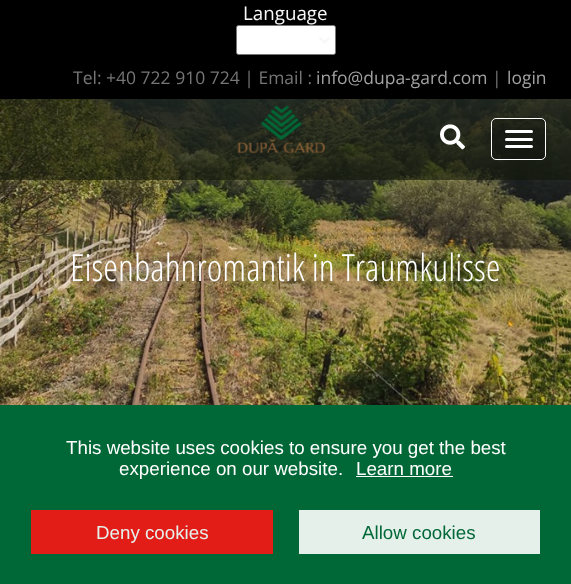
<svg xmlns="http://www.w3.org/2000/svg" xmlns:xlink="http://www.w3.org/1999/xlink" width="571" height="584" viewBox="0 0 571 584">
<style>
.cls-1{font:18.75px Open Sans;fill:#f8f8f8}
.cls-2{font:17.5px Open Sans;fill:#777676}
.cls-3{font:17.5px Open Sans;fill:#a3a1a1}
.cls-4{font:300 37.5px Open Sans Condensed;fill:#ffffff}
.cls-5{font:18.75px Liberation Sans;fill:#ffffff}
.cls-6{font:18.75px Liberation Sans;fill:#e6f0eb}
.cls-7{font:18.75px Liberation Sans;fill:#006837}
</style>
<rect width="100%" height="100%" fill="#ffffff"/>
<image xlink:href="image2.png" x="0" y="99" width="571" height="306"/>
<rect fill="#121709" fill-opacity="0.6" x="0" y="99" width="571" height="81"/>
<rect fill="#000000" x="0" y="0" width="571" height="99"/>
<rect fill="#ffffff" stroke="#767676" x="236.5" y="25.5" width="99" height="29" rx="2"/>
<path fill="none" stroke="#f8f8f8" stroke-width="2.5" d="M319.5 37.5L324.5 42.5L329.5 37.5"/>
<image xlink:href="image0.png" x="237" y="105" width="89" height="49"/>
<image xlink:href="image1.png" x="440" y="124" width="25" height="26"/>
<rect fill="#000000" fill-opacity="0.2" stroke="#ffffff" x="491.5" y="118.5" width="54" height="41" rx="4.5"/>
<rect fill="#ffffff" x="505" y="130" width="28" height="3" rx="1.5"/>
<rect fill="#ffffff" x="505" y="138" width="28" height="3" rx="1.5"/>
<rect fill="#ffffff" x="505" y="145" width="28" height="3" rx="1.5"/>
<rect fill="#006837" x="0" y="405" width="571" height="179"/>
<rect fill="#ffffff" x="356" y="476" width="97" height="1"/>
<rect fill="#e21d18" x="31" y="510" width="242" height="44"/>
<rect fill="#e6f0eb" x="299" y="510" width="241" height="44"/>
<text class="cls-1" x="243" y="20">Language</text>
<text class="cls-2" x="73" y="84">Tel: +40 722 910 724 | Email :</text>
<text class="cls-3" x="316" y="84">info@dupa-gard.com</text>
<text class="cls-2" x="492" y="84">|</text>
<text class="cls-3" x="507" y="84">login</text>
<text class="cls-4" x="70" y="281">Eisenbahnromantik in Traumkulisse</text>
<text class="cls-5" x="66" y="454">This website uses cookies to ensure you get the best</text>
<text class="cls-5" x="119" y="475">experience on our website.</text>
<text class="cls-5" x="356" y="475">Learn more</text>
<text class="cls-6" x="96" y="539">Deny cookies</text>
<text class="cls-7" x="362" y="539">Allow cookies</text>
</svg>
